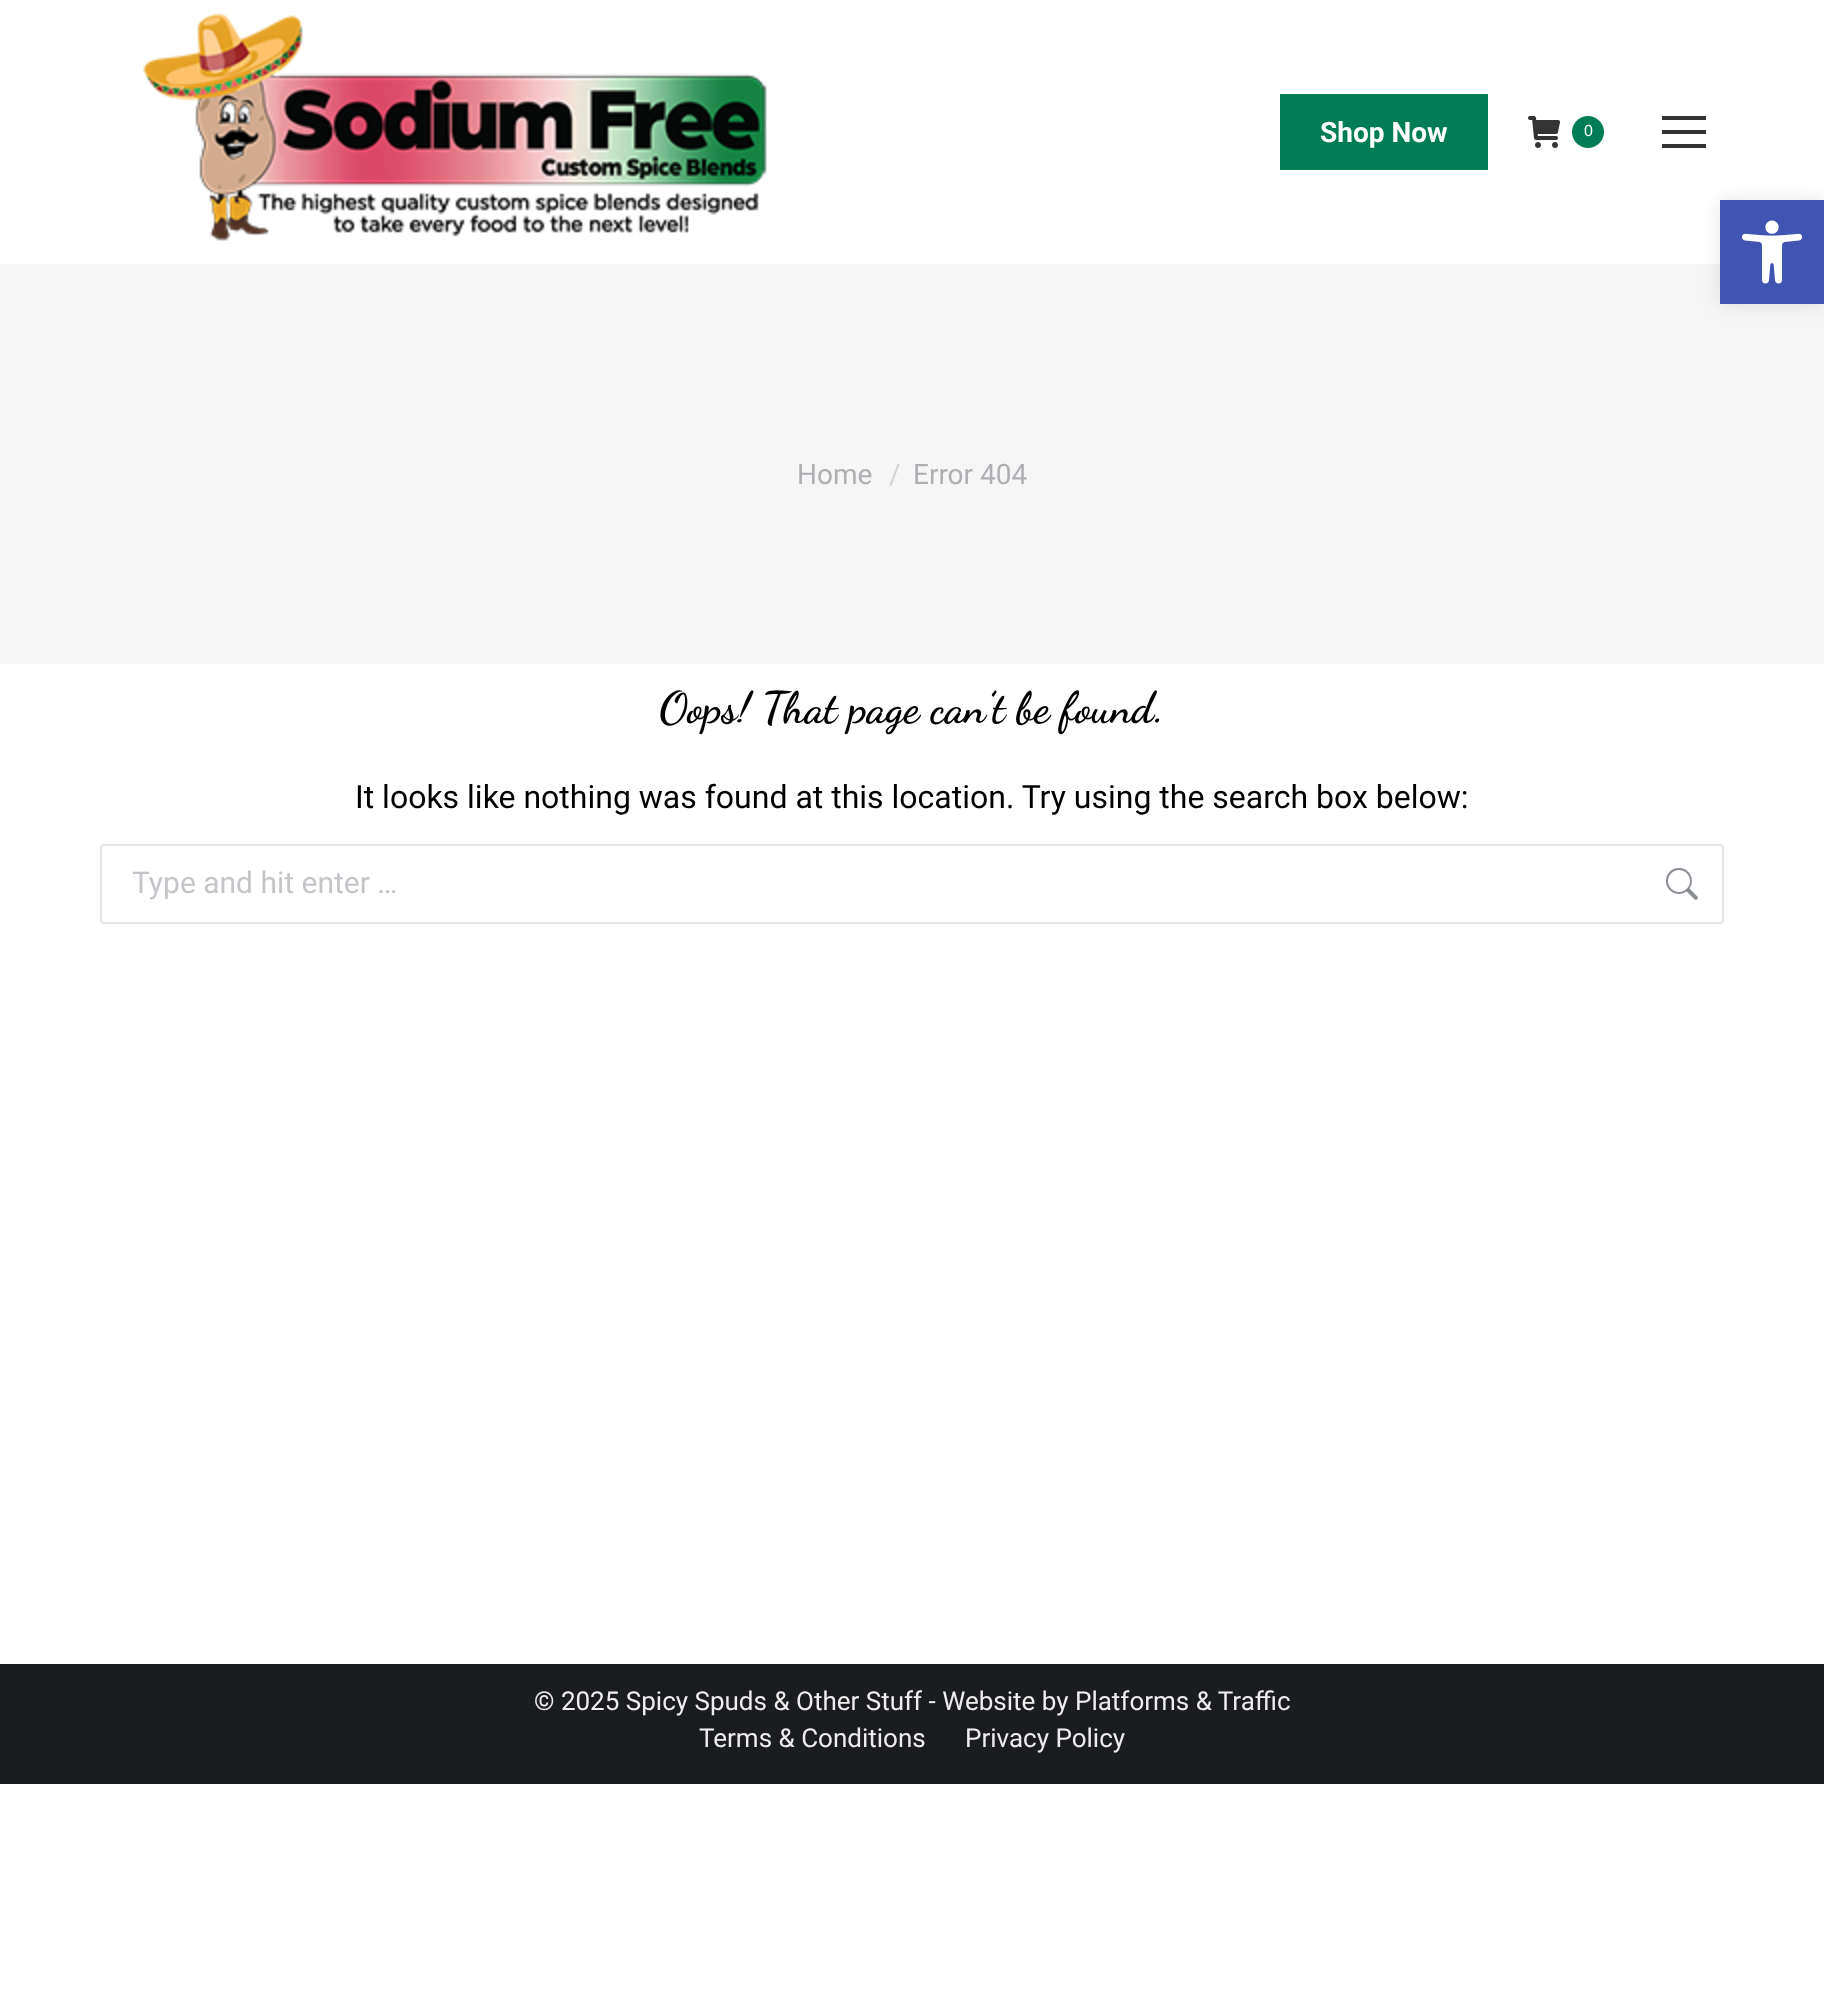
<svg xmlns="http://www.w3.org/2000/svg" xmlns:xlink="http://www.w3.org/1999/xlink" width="1824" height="2014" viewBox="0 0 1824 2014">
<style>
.cls-1{font:bold 28px Roboto;fill:#ffffff}
.cls-2{font:16px Liberation Sans;fill:#ffffff}
.cls-3{font:28px Roboto;fill:#adafb3}
.cls-4{font:28px Roboto;fill:#d2d3d5}
.cls-5{font:bold 44px Dancing Script;fill:#000000}
.cls-6{font:32px Roboto;fill:#000000}
.cls-7{font:30px Roboto;fill:#c4c5c9}
.cls-8{font:26px Roboto;fill:#eeeeee}
</style>
<rect width="100%" height="100%" fill="#ffffff"/>
<image xlink:href="image0.png" x="143" y="13" width="624" height="228"/>
<rect fill="#007d55" x="1280" y="94" width="208" height="76"/>
<image xlink:href="image1.png" x="1528" y="116" width="32" height="32"/>
<circle fill="#007d55" cx="1588" cy="132" r="16"/>
<rect fill="#333333" x="1662" y="116" width="44" height="4"/>
<rect fill="#333333" x="1662" y="130" width="44" height="4"/>
<rect fill="#333333" x="1662" y="144" width="44" height="4"/>
<rect fill="#f6f6f6" x="0" y="264" width="1824" height="400"/>
<rect fill="none" stroke="#e7e7e7" stroke-width="2" x="101" y="845" width="1622" height="78" rx="3"/>
<image xlink:href="image2.png" x="1666" y="868" width="32" height="32"/>
<rect fill="#1a1c20" x="0" y="1664" width="1824" height="120"/>
<rect fill="#000000" fill-opacity="0.1" filter="blur(10px)" x="1720" y="200" width="104" height="104"/>
<rect fill="#4054b2" x="1720" y="200" width="104" height="104"/>
<image xlink:href="image3.png" x="1742" y="220" width="61" height="64"/>
<text class="cls-1" x="1320" y="142">Shop Now</text>
<text class="cls-2" x="1584" y="136">0</text>
<text class="cls-3" x="797" y="484">Home</text>
<text class="cls-4" x="889" y="484">/</text>
<text class="cls-3" x="913" y="484">Error 404</text>
<text class="cls-5" x="659" y="722">Oops! That page can’t be found.</text>
<text class="cls-6" x="355" y="808">It looks like nothing was found at this location. Try using the search box below:</text>
<text class="cls-7" x="132" y="893">Type and hit enter …</text>
<text class="cls-8" x="534" y="1710">© 2025 Spicy Spuds &amp; Other Stuff - Website by Platforms &amp; Traffic</text>
<text class="cls-8" x="699" y="1747">Terms &amp; Conditions</text>
<text class="cls-8" x="965" y="1747">Privacy Policy</text>
</svg>
